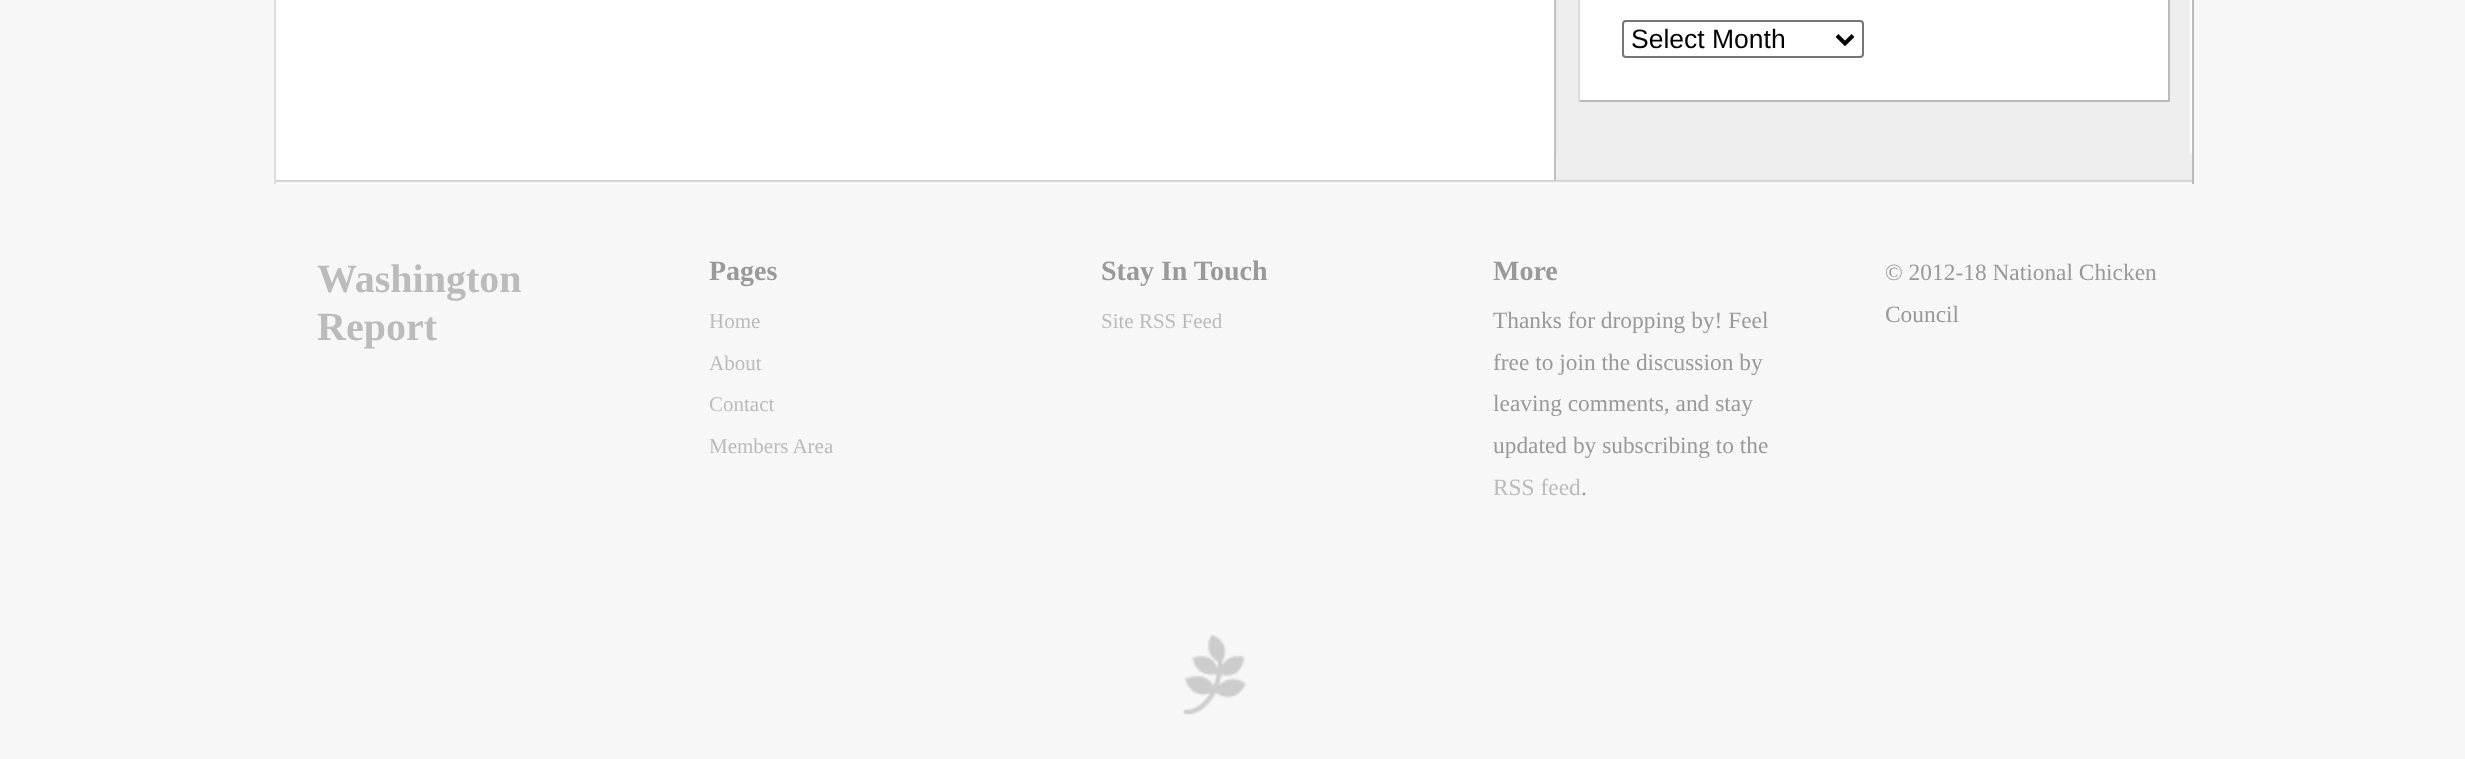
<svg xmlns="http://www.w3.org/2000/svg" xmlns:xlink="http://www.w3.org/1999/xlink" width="2465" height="759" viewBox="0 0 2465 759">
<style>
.cls-1{font:26.5px Liberation Sans;fill:#000000}
.cls-2{font:bold 40px Liberation Serif;fill:#bbbbbb}
.cls-3{font:bold 28px Liberation Serif;fill:#999999}
.cls-4{font:21px Liberation Serif;fill:#bbbbbb}
.cls-5{font:23.4px Liberation Serif;fill:#999999}
.cls-6{font:23.4px Liberation Serif;fill:#bbbbbb}
</style>
<rect width="100%" height="100%" fill="#f7f7f7"/>
<rect fill="#ffffff" x="276" y="0" width="1278" height="180"/>
<rect fill="#bbbbbb" x="2192" y="0" width="2" height="184"/>
<rect fill="#dddddd" x="274" y="0" width="2" height="184"/>
<rect fill="#eeeeee" x="1556" y="0" width="636" height="180"/>
<rect fill="#c1c1c1" x="1554" y="0" width="2" height="180"/>
<rect fill="#ffffff" x="2190" y="0" width="2" height="154"/>
<rect fill="#eaeaea" x="1556" y="0" width="2" height="154"/>
<rect fill="#ffffff" x="1580" y="0" width="588" height="100"/>
<rect fill="#bbbbbb" x="2168" y="0" width="2" height="102"/>
<rect fill="#bbbbbb" x="1578" y="100" width="592" height="2"/>
<rect fill="#dddddd" x="1578" y="0" width="2" height="102"/>
<rect fill="none" stroke="#767676" stroke-width="2" x="1623" y="21" width="240" height="36" rx="3"/>
<path fill="none" stroke="#000000" stroke-width="4" d="M1837 35.5L1845 43.5L1853 35.5"/>
<image xlink:href="image0.png" x="276" y="180" width="1916" height="4"/>
<image xlink:href="image1.png" x="1183" y="634" width="64" height="81"/>
<text class="cls-1" x="1631" y="48">Select Month</text>
<text class="cls-2"><tspan x="317" y="292">Washington</tspan><tspan x="317" y="340">Report</tspan></text>
<text class="cls-3" x="709" y="280">Pages</text>
<text class="cls-4" x="709" y="328">Home</text>
<text class="cls-4"><tspan x="709" y="370">About</tspan><tspan x="709" y="411">Contact</tspan></text>
<text class="cls-4" x="709" y="453">Members Area</text>
<text class="cls-3" x="1101" y="280">Stay In Touch</text>
<text class="cls-4" x="1101" y="328">Site RSS Feed</text>
<text class="cls-3" x="1493" y="280">More</text>
<text class="cls-5"><tspan x="1493" y="328">Thanks for dropping by! Feel</tspan><tspan x="1493" y="370">free to join the discussion by</tspan><tspan x="1493" y="411">leaving comments, and stay</tspan><tspan x="1493" y="453">updated by subscribing to the</tspan></text>
<text class="cls-6" x="1493" y="495">RSS feed</text>
<text class="cls-5" x="1581" y="495">.</text>
<text class="cls-5"><tspan x="1885" y="280">© 2012-18 National Chicken</tspan><tspan x="1885" y="322">Council</tspan></text>
</svg>
